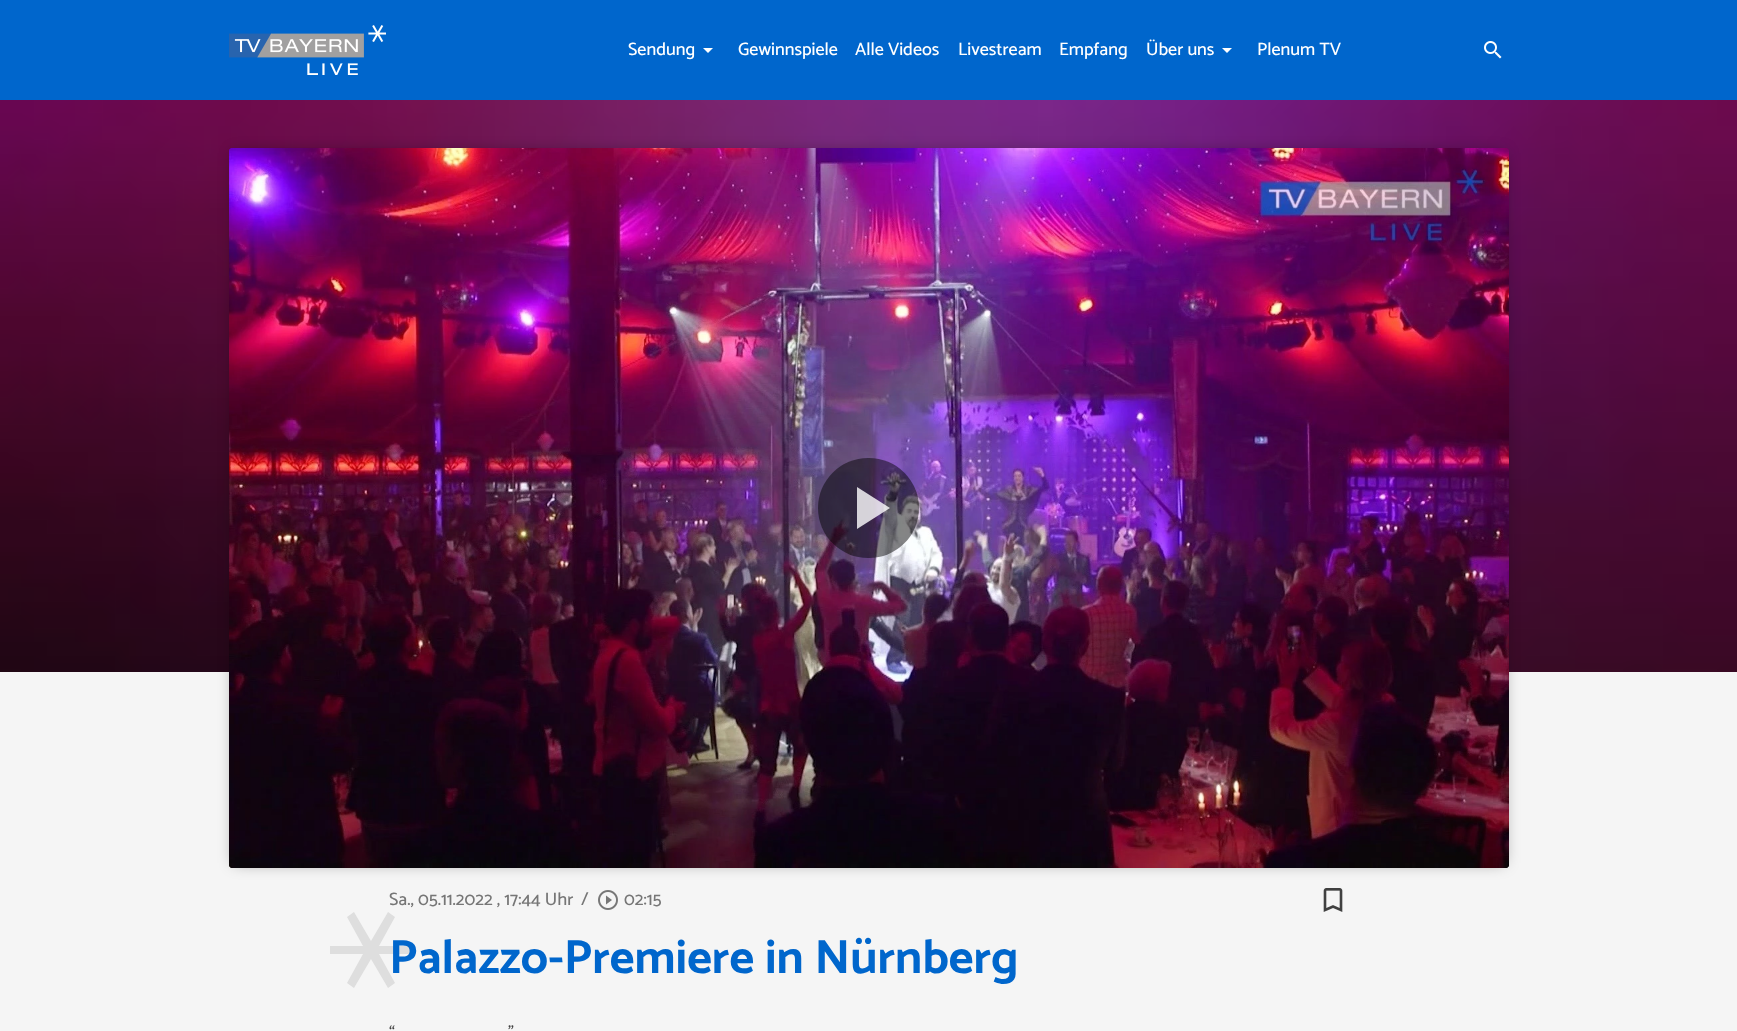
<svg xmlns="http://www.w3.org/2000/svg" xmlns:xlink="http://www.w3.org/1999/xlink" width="1737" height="1031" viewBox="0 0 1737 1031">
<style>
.cls-1{font:500 18px Catamaran;fill:#ffffff}
.cls-2{font:500 18px Catamaran;fill:#767676}
.cls-3{font:bold 48px Catamaran;fill:#0066cc}
.cls-4{font:18px Catamaran;fill:#404040}
</style>
<rect width="100%" height="100%" fill="#f5f5f5"/>
<rect fill="#0066cc" x="0" y="0" width="1737" height="100"/>
<image xlink:href="image0.png" x="229" y="25" width="157" height="50"/>
<path fill="#ffffff" d="M703 48H713L708 53Z"/>
<path fill="#ffffff" d="M1222 48H1232L1227 53Z"/>
<image xlink:href="image1.png" x="1484" y="41" width="18" height="18"/>
<image xlink:href="image2.png" x="0" y="100" width="1737" height="572"/>
<rect fill="#000000" fill-opacity="0.4" filter="blur(7.5px)" x="234" y="153" width="1270" height="710"/>
<image xlink:href="image3.png" x="229" y="148" width="1280" height="720"/>
<image xlink:href="image4.png" x="229" y="148" width="1280" height="720"/>
<image xlink:href="image5.png" x="229" y="148" width="1280" height="720"/>
<rect fill="#000000" fill-opacity="0.48" x="818" y="458" width="101" height="100" rx="50"/>
<path fill="#ffffff" fill-opacity="0.8" d="M857 487V529L890 508Z"/>
<image xlink:href="image6.png" x="598" y="890" width="20" height="20"/>
<image xlink:href="image7.png" x="1323" y="888" width="20" height="24"/>
<path fill="#dedede" d="M381 954H379L395 983L388 988L371 959L354 988L347 983L363 954H330V946H363L347 917L354 912L371 941L388 912L395 917L379 946H412V954Z"/>
<text class="cls-1" x="628" y="55">Sendung</text>
<text class="cls-1" x="738" y="55">Gewinnspiele</text>
<text class="cls-1" x="855" y="55">Alle Videos</text>
<text class="cls-1" x="958" y="55">Livestream</text>
<text class="cls-1" x="1059" y="55">Empfang</text>
<text class="cls-1" x="1146" y="55">Über uns</text>
<text class="cls-1" x="1257" y="55">Plenum TV</text>
<text class="cls-2" x="389" y="905">Sa., 05.11.2022 , 17:44 Uhr</text>
<text class="cls-2" x="581" y="905">/</text>
<text class="cls-2" x="624" y="905">02:15</text>
<text class="cls-3" x="389" y="973">Palazzo-Premiere in Nürnberg</text>
<text class="cls-4" x="389" y="1038">“</text>
<text class="cls-4" x="508" y="1038">”</text>
</svg>
